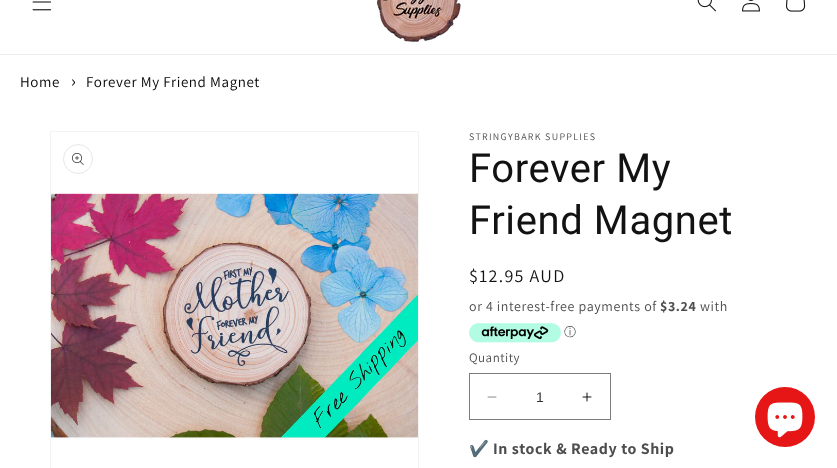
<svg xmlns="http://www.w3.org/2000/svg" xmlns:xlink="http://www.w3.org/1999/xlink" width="837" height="468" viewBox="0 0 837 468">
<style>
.cls-1{font:15px Assistant;letter-spacing:0.6px;fill:#000000}
.cls-2{font:18px Assistant;letter-spacing:0.6px;fill:#000000}
.cls-3{font:10px Assistant;letter-spacing:1.3px;fill:#4d4d4d}
.cls-4{font:40px Roboto;letter-spacing:0.6px;fill:#121212}
.cls-5{font:18px Assistant;letter-spacing:1.3px;fill:#121212}
.cls-6{font:14px Assistant;letter-spacing:0.6px;fill:#4d4d4d}
.cls-7{font:bold 14px Assistant;letter-spacing:0.6px;fill:#4d4d4d}
.cls-8{font:500 12px WenQuanYi Zen Hei;fill:#4d4d4d}
.cls-9{font:13px Assistant;letter-spacing:0.5px;fill:#4d4d4d}
.cls-10{font:14px Liberation Sans;fill:#363636}
.cls-11{font:16px Noto Color Emoji;letter-spacing:0.6px;fill:#4d4d4d}
.cls-12{font:bold 16px Assistant;letter-spacing:0.6px;fill:#4d4d4d}
</style>
<rect width="100%" height="100%" fill="#ffffff"/>
<rect fill="#ececec" x="0" y="54" width="837" height="1"/>
<image xlink:href="image0.png" x="32" y="1" width="20" height="10"/>
<image xlink:href="image1.png" x="376" y="0" width="85" height="42"/>
<image xlink:href="image2.png" x="697" y="0" width="19" height="12"/>
<image xlink:href="image3.png" x="742" y="0" width="18" height="12"/>
<image xlink:href="image4.png" x="786" y="0" width="20" height="12"/>
<rect fill="none" stroke="#f3f3f3" x="50.5" y="131.5" width="368" height="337"/>
<circle fill="none" stroke="#e7e7e7" cx="78" cy="159" r="14.5"/>
<image xlink:href="image5.png" x="72" y="153" width="12" height="12"/>
<image xlink:href="image6.png" x="51" y="192" width="367" height="249"/>
<image xlink:href="image7.png" x="469" y="323" width="92" height="20"/>
<image xlink:href="image8.png" x="487" y="396" width="10" height="2"/>
<image xlink:href="image9.png" x="582" y="392" width="10" height="10"/>
<rect fill="none" stroke="#7d7d7d" x="469.5" y="373.5" width="141" height="46"/>
<circle fill="#e61616" cx="785" cy="417" r="30"/>
<image xlink:href="image10.png" x="767" y="402" width="36" height="36"/>
<text class="cls-1" x="20" y="87">Home</text>
<text class="cls-2" x="71" y="87">›</text>
<text class="cls-1" x="86" y="87">Forever My Friend Magnet</text>
<text class="cls-3" x="469" y="140">STRINGYBARK SUPPLIES</text>
<text class="cls-4"><tspan x="469" y="182">Forever My</tspan><tspan x="469" y="234">Friend Magnet</tspan></text>
<text class="cls-5" x="469" y="282">$12.95 AUD</text>
<text class="cls-6" x="469" y="311">or 4 interest-free payments of</text>
<text class="cls-7" x="660" y="311">$3.24</text>
<text class="cls-6" x="700" y="311">with</text>
<text class="cls-8" x="564" y="336">ⓘ</text>
<text class="cls-9" x="469" y="362">Quantity</text>
<text class="cls-10" x="536" y="402">1</text>
<text class="cls-11" x="469" y="454">✔️</text>
<text class="cls-12" x="493" y="454">In stock &amp; Ready to Ship</text>
</svg>
